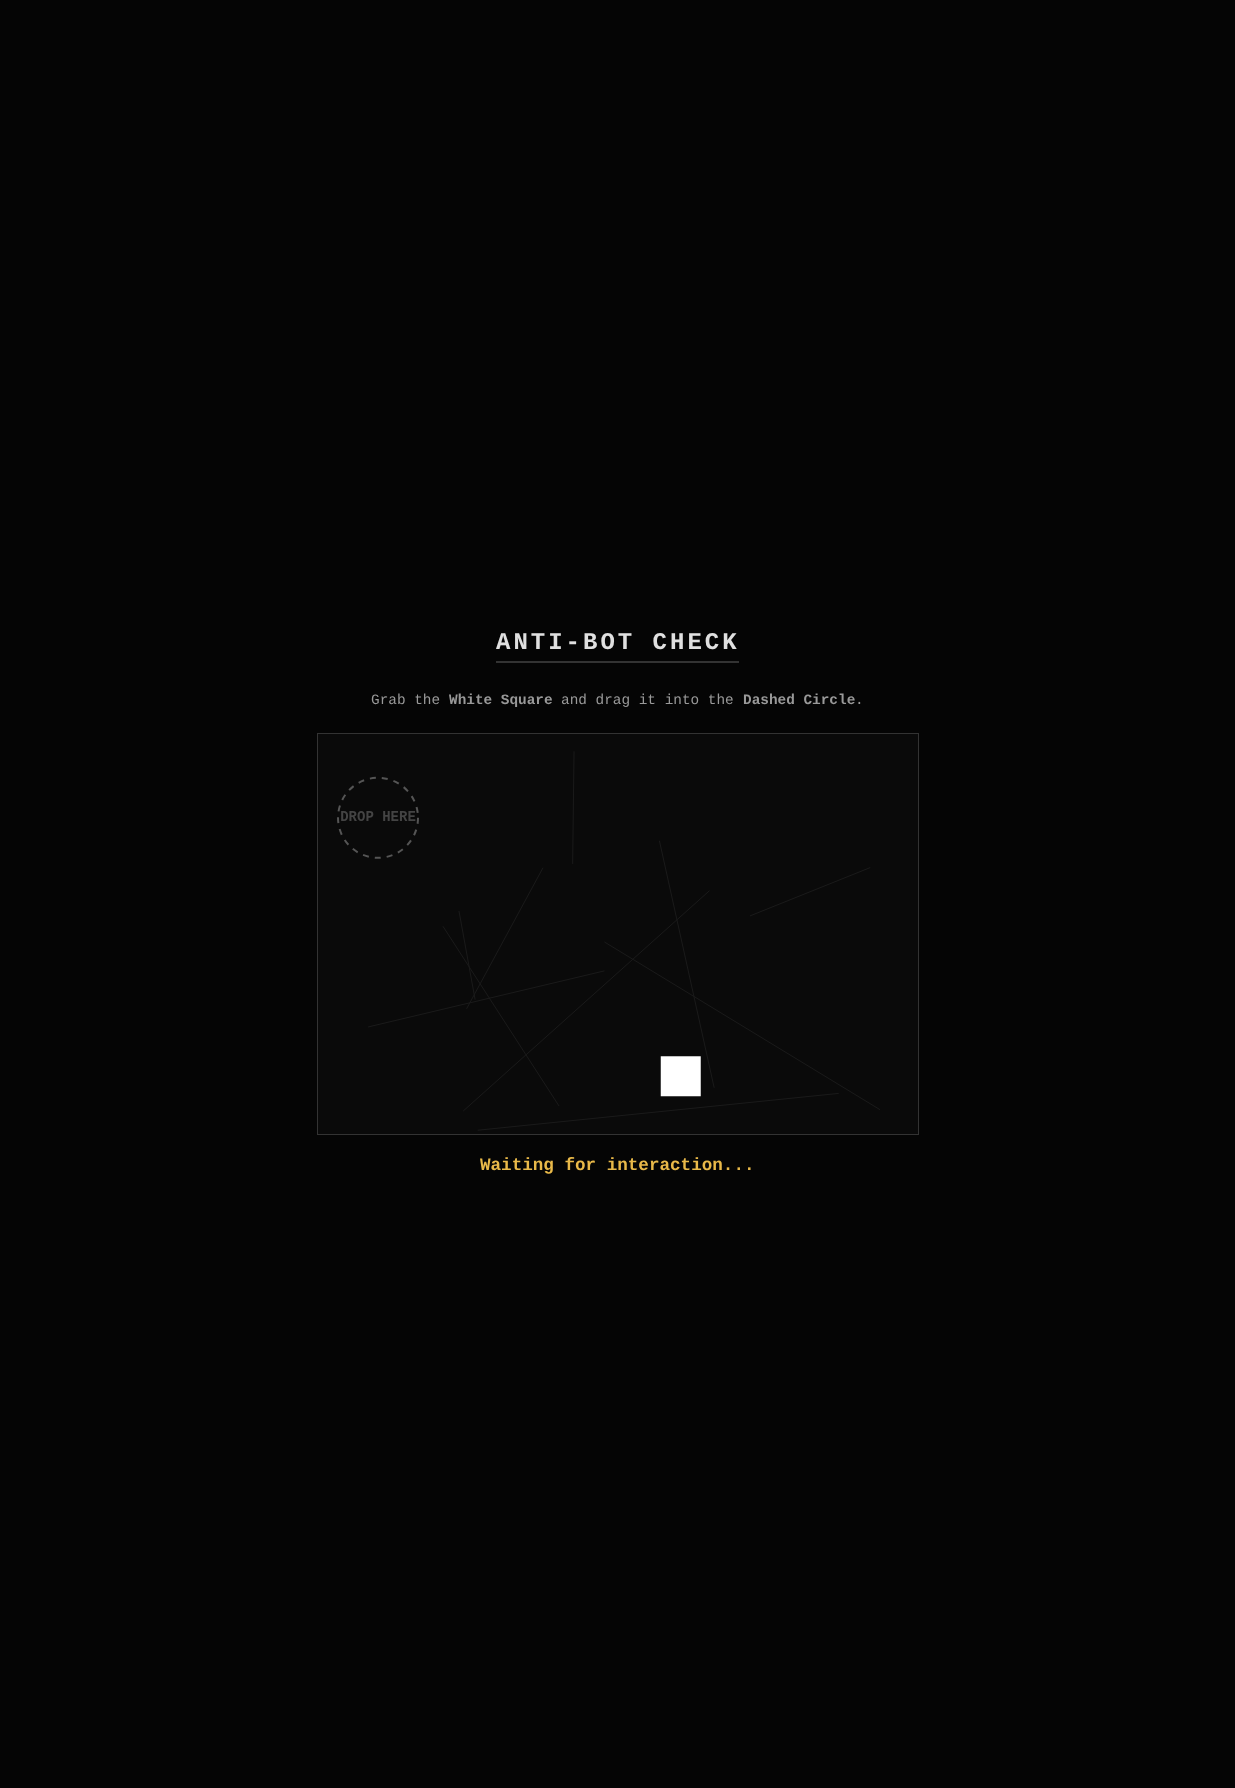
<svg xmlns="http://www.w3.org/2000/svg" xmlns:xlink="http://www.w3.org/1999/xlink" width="1235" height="1788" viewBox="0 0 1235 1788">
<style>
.cls-1{font:bold 24px Liberation Mono;letter-spacing:3px;fill:#e0e0e0}
.cls-2{font:14.4px Liberation Mono;fill:#999999}
.cls-3{font:bold 14.4px Liberation Mono;fill:#999999}
.cls-4{font:bold 17.6px Liberation Mono;fill:#e9b949}
</style>
<rect width="100%" height="100%" fill="#050505"/>
<rect fill="#333333" x="496" y="661" width="243" height="2"/>
<rect fill="#0a0a0a" stroke="#333333" x="317.5" y="733.5" width="601" height="401"/>
<image xlink:href="image0.png" x="337" y="751" width="543" height="380"/>
<text class="cls-1" x="496" y="649">ANTI-BOT CHECK</text>
<text class="cls-2" x="371" y="704">Grab the</text>
<text class="cls-3" x="449" y="704">White Square</text>
<text class="cls-2" x="561" y="704">and drag it into the</text>
<text class="cls-3" x="743" y="704">Dashed Circle</text>
<text class="cls-2" x="855" y="704">.</text>
<text class="cls-4" x="480" y="1170">Waiting for interaction...</text>
</svg>
